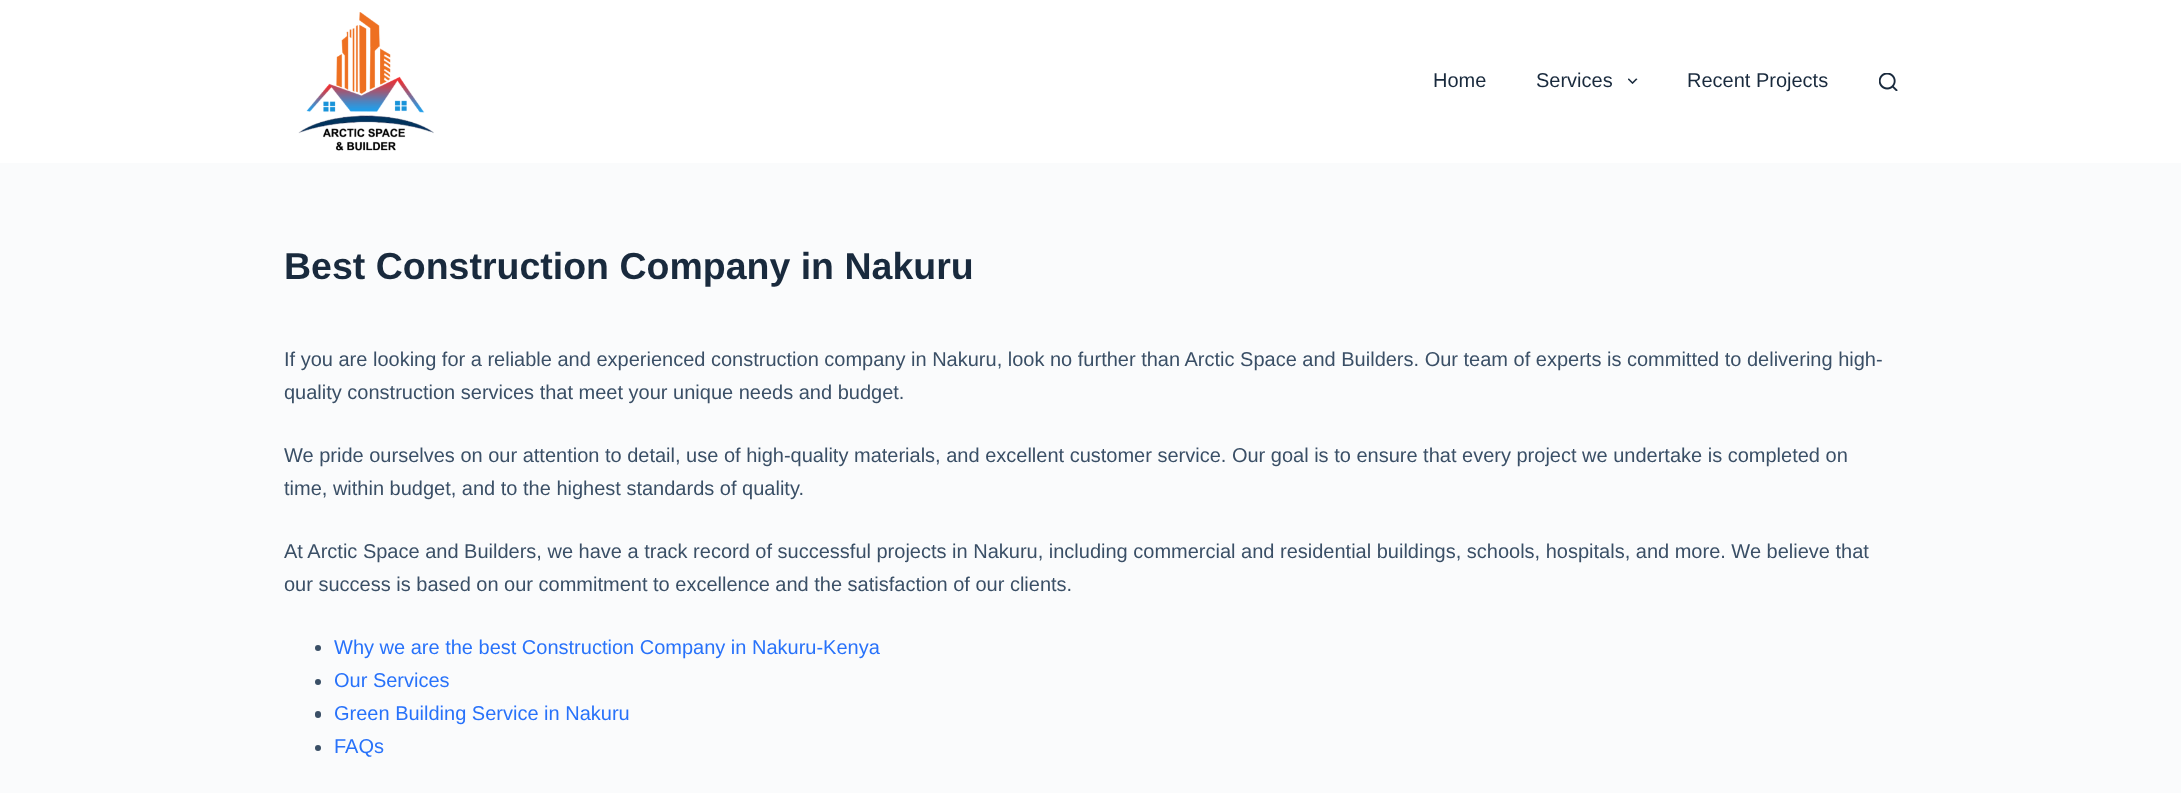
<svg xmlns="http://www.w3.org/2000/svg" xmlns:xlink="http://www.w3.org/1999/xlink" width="2181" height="793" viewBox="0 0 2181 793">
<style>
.cls-1{font:20px Liberation Sans;fill:#192a3d}
.cls-2{font:bold 37.5px Liberation Sans;fill:#192a3d}
.cls-3{font:20px Liberation Sans;fill:#3a4f66}
.cls-4{font:20px Liberation Sans;fill:#2872fa}
</style>
<rect width="100%" height="100%" fill="#fafbfc"/>
<rect fill="#ffffff" x="0" y="0" width="2181" height="163"/>
<image xlink:href="image0.png" x="298" y="12" width="136" height="139"/>
<image xlink:href="image1.png" x="1628" y="78" width="10" height="6"/>
<image xlink:href="image2.png" x="1879" y="73" width="19" height="18"/>
<circle fill="#3a4f66" cx="318" cy="648" r="3"/>
<circle fill="#3a4f66" cx="318" cy="682" r="3"/>
<rect fill="#3a4f66" x="315" y="711" width="6" height="7" rx="3"/>
<circle fill="#3a4f66" cx="318" cy="748" r="3"/>
<text class="cls-1" x="1433" y="87">Home</text>
<text class="cls-1" x="1536" y="87">Services</text>
<text class="cls-1" x="1687" y="87">Recent Projects</text>
<text class="cls-2" x="284" y="279">Best Construction Company in Nakuru</text>
<text class="cls-3"><tspan x="284" y="366">If you are looking for a reliable and experienced construction company in Nakuru, look no further than Arctic Space and Builders. Our team of experts is committed to delivering high-</tspan><tspan x="284" y="399">quality construction services that meet your unique needs and budget.</tspan></text>
<text class="cls-3"><tspan x="284" y="462">We pride ourselves on our attention to detail, use of high-quality materials, and excellent customer service. Our goal is to ensure that every project we undertake is completed on</tspan><tspan x="284" y="495">time, within budget, and to the highest standards of quality.</tspan></text>
<text class="cls-3"><tspan x="284" y="558">At Arctic Space and Builders, we have a track record of successful projects in Nakuru, including commercial and residential buildings, schools, hospitals, and more. We believe that</tspan><tspan x="284" y="591">our success is based on our commitment to excellence and the satisfaction of our clients.</tspan></text>
<text class="cls-4"><tspan x="334" y="654">Why we are the best Construction Company in Nakuru-Kenya</tspan><tspan x="334" y="687">Our Services</tspan><tspan x="334" y="720">Green Building Service in Nakuru</tspan><tspan x="334" y="753">FAQs</tspan></text>
</svg>
